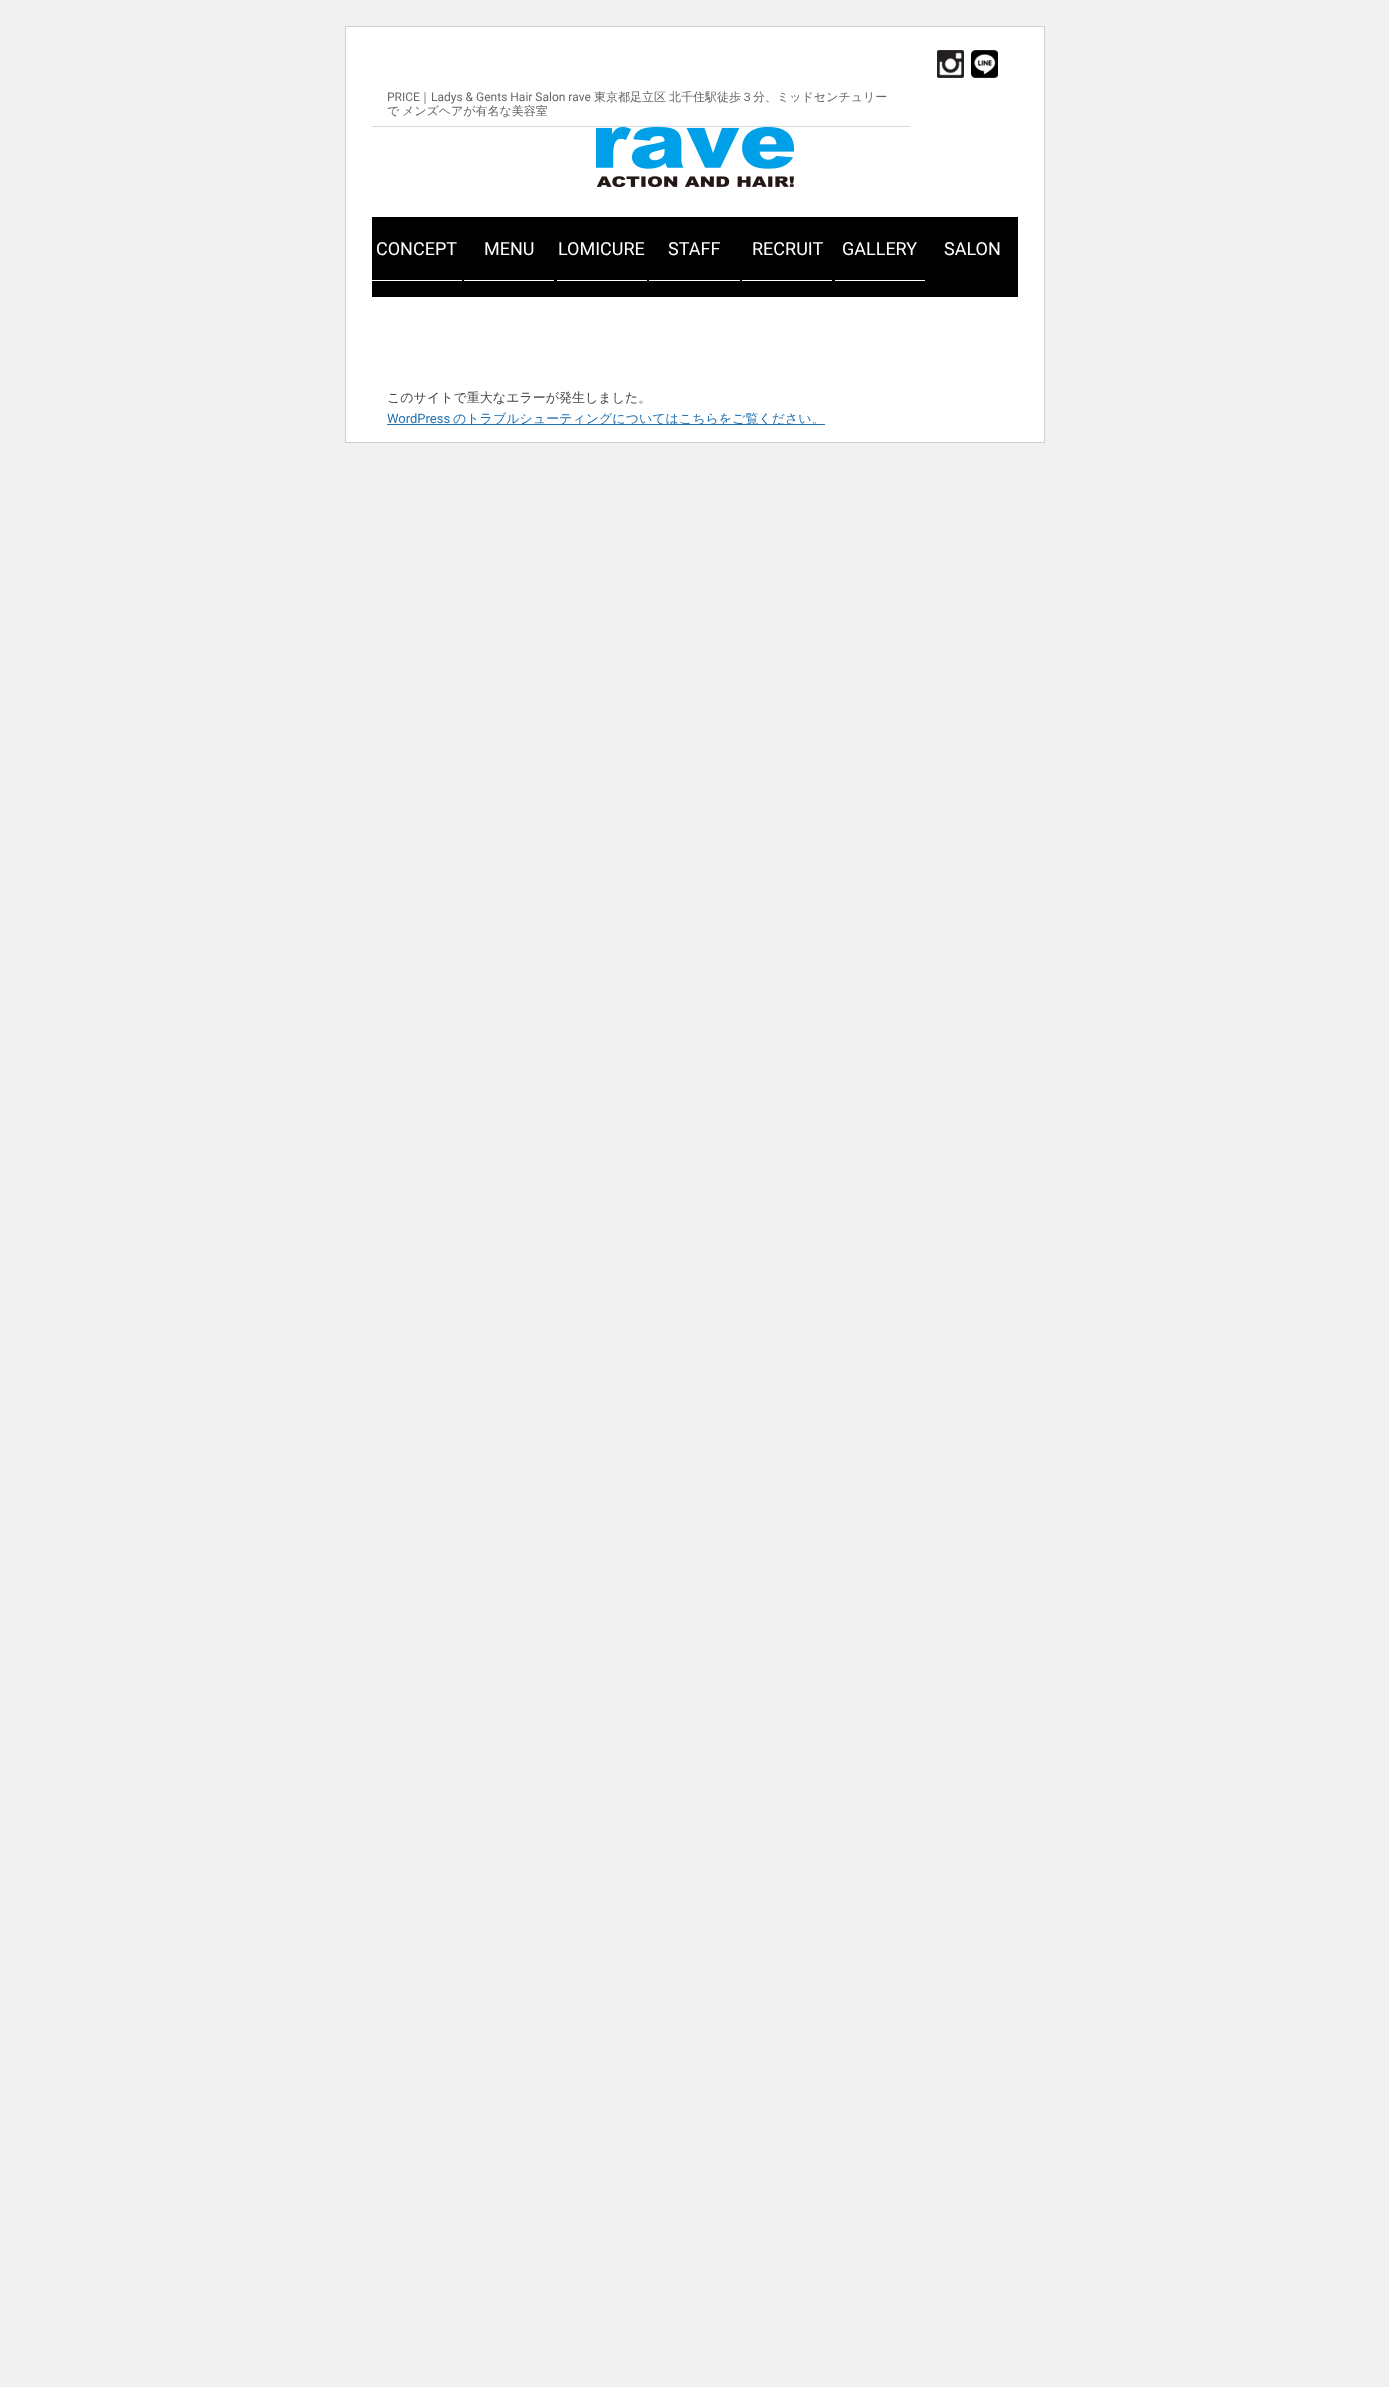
<svg xmlns="http://www.w3.org/2000/svg" xmlns:xlink="http://www.w3.org/1999/xlink" width="1389" height="2387" viewBox="0 0 1389 2387">
<style>
.cls-1{font:12px Roboto;fill:#666666}
.cls-2{font:500 12px WenQuanYi Zen Hei;fill:#666666}
.cls-3{font:18px Roboto;fill:#ffffff}
.cls-4{font:500 13px WenQuanYi Zen Hei;fill:#444444}
.cls-5{font:13px Roboto;fill:#2271b1}
.cls-6{font:500 13px WenQuanYi Zen Hei;fill:#2271b1}
</style>
<rect width="100%" height="100%" fill="#f1f1f1"/>
<rect fill="#ffffff" stroke="#ccd0d4" x="345.5" y="26.5" width="699" height="416"/>
<image xlink:href="image0.png" x="937" y="50" width="27" height="28"/>
<image xlink:href="image1.png" x="971" y="50" width="27" height="28"/>
<rect fill="#dadada" x="372" y="126" width="538" height="1"/>
<image xlink:href="image2.png" x="596" y="127" width="198" height="60"/>
<rect fill="#000000" x="372" y="217" width="646" height="80"/>
<rect fill="#ffffff" x="372" y="280" width="90" height="1"/>
<rect fill="#ffffff" x="464" y="280" width="90" height="1"/>
<rect fill="#ffffff" x="557" y="280" width="90" height="1"/>
<rect fill="#ffffff" x="649" y="280" width="91" height="1"/>
<rect fill="#ffffff" x="742" y="280" width="90" height="1"/>
<rect fill="#ffffff" x="835" y="280" width="90" height="1"/>
<rect fill="#2271b1" x="387" y="424" width="438" height="1"/>
<text class="cls-1" x="387" y="101">PRICE</text>
<text class="cls-2" x="419" y="101">｜</text>
<text class="cls-1" x="431" y="101">Ladys &amp; Gents Hair Salon rave</text>
<text class="cls-2" x="594" y="101">東京都足立区</text>
<text class="cls-2" x="669" y="101">北千住駅徒歩３分、ミッドセンチュリー</text>
<text class="cls-2" x="387" y="115" word-spacing="-1">で メンズヘアが有名な美容室</text>
<text class="cls-3" x="376" y="255">CONCEPT</text>
<text class="cls-3" x="484" y="255">MENU</text>
<text class="cls-3" x="558" y="255">LOMICURE</text>
<text class="cls-3" x="668" y="255">STAFF</text>
<text class="cls-3" x="752" y="255">RECRUIT</text>
<text class="cls-3" x="842" y="255">GALLERY</text>
<text class="cls-3" x="944" y="255">SALON</text>
<text class="cls-4" x="387" y="402">このサイトで重大なエラーが発生しました。</text>
<text class="cls-5" x="387" y="423">WordPress</text>
<text class="cls-6" x="453" y="423">のトラブルシューティングについてはこちらをご覧ください。</text>
</svg>
